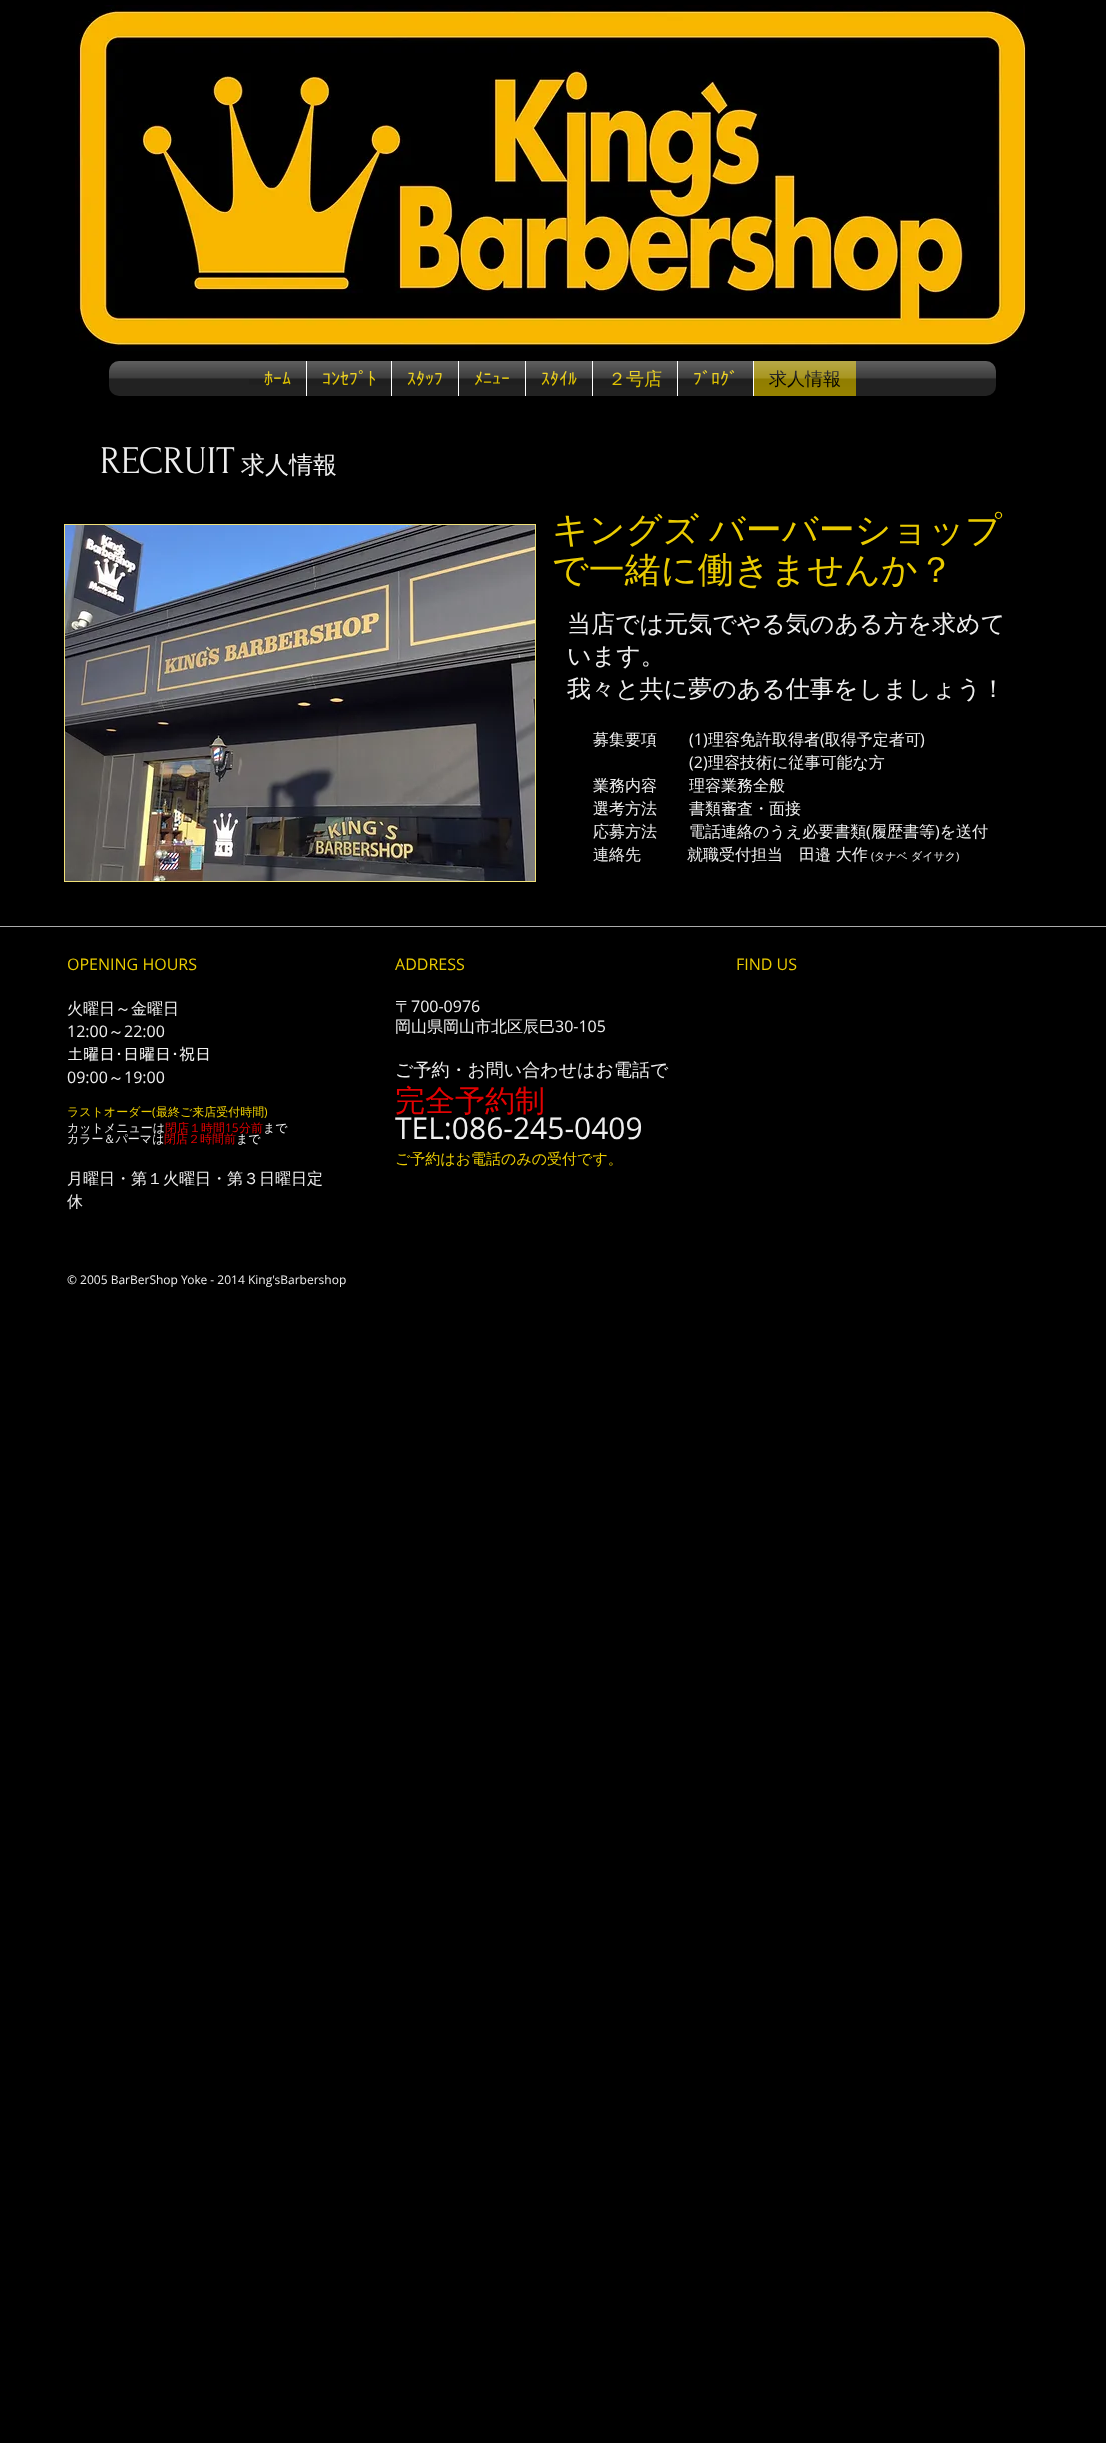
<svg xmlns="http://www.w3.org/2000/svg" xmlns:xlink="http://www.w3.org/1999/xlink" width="1106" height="2443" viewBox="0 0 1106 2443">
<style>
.cls-1{font:18px IPAPGothic;fill:#eacb00}
.cls-2{font:500 18px WenQuanYi Zen Hei;fill:#eacb00}
.cls-3{font:500 18px WenQuanYi Zen Hei;fill:#000000}
.cls-4{font:39px Forum;fill:#efefef}
.cls-5{font:500 24px WenQuanYi Zen Hei;fill:#efefef}
.cls-6{font:500 36px WenQuanYi Zen Hei;fill:#eacb00}
.cls-7{font:500 16px WenQuanYi Zen Hei;fill:#efefef}
.cls-8{font:16px Open Sans;fill:#efefef}
.cls-9{font:11px Open Sans;fill:#efefef}
.cls-10{font:500 11px WenQuanYi Zen Hei;fill:#efefef}
.cls-11{font:16px Open Sans;fill:#eacb00}
.cls-12{font:16px IPAPGothic;fill:#efefef}
.cls-13{font:500 12px WenQuanYi Zen Hei;fill:#eacb00}
.cls-14{font:12px Open Sans;fill:#eacb00}
.cls-15{font:500 12px WenQuanYi Zen Hei;fill:#efefef}
.cls-16{font:500 12px WenQuanYi Zen Hei;fill:#e20202}
.cls-17{font:12px Open Sans;fill:#e20202}
.cls-18{font:500 18px WenQuanYi Zen Hei;fill:#efefef}
.cls-19{font:500 30px WenQuanYi Zen Hei;fill:#e20202}
.cls-20{font:30px Open Sans;fill:#efefef}
.cls-21{font:500 15px WenQuanYi Zen Hei;fill:#eacb00}
.cls-22{font:12px Open Sans;fill:#efefef}
</style>
<rect width="100%" height="100%" fill="#000000"/>
<image xlink:href="image0.png" x="75" y="5" width="952" height="346"/>
<rect fill="#222222" x="109" y="361" width="887" height="35" rx="10"/>
<image xlink:href="image1.png" x="109" y="361" width="887" height="18"/>
<rect fill="#222222" x="249" y="361" width="57" height="18"/>
<rect fill="#222222" x="307" y="361" width="84" height="18"/>
<rect fill="#ffffff" x="306" y="361" width="1" height="35"/>
<rect fill="#222222" x="392" y="361" width="66" height="18"/>
<rect fill="#ffffff" x="391" y="361" width="1" height="35"/>
<rect fill="#222222" x="459" y="361" width="66" height="18"/>
<rect fill="#ffffff" x="458" y="361" width="1" height="35"/>
<rect fill="#222222" x="526" y="361" width="66" height="18"/>
<rect fill="#ffffff" x="525" y="361" width="1" height="35"/>
<rect fill="#222222" x="593" y="361" width="84" height="18"/>
<rect fill="#ffffff" x="592" y="361" width="1" height="35"/>
<rect fill="#222222" x="678" y="361" width="75" height="18"/>
<rect fill="#ffffff" x="677" y="361" width="1" height="35"/>
<rect fill="#9c8700" x="754" y="361" width="102" height="35"/>
<rect fill="#ffffff" x="753" y="361" width="1" height="35"/>
<rect fill="#f1e178" x="64" y="524" width="472" height="358"/>
<image xlink:href="image10.png" x="65" y="525" width="470" height="356"/>
<rect fill="#ababab" x="0" y="926" width="1106" height="1"/>
<text class="cls-1" x="264" y="385">ﾎｰﾑ</text>
<image xlink:href="image2.png" x="249" y="361" width="57" height="24"/>
<text class="cls-1" x="322" y="385">ｺﾝｾﾌﾟﾄ</text>
<image xlink:href="image3.png" x="307" y="361" width="84" height="25"/>
<text class="cls-1" x="407" y="385">ｽﾀｯﾌ</text>
<image xlink:href="image4.png" x="392" y="361" width="66" height="25"/>
<text class="cls-1" x="474" y="385">ﾒﾆｭｰ</text>
<image xlink:href="image5.png" x="459" y="361" width="66" height="24"/>
<text class="cls-1" x="541" y="385">ｽﾀｲﾙ</text>
<image xlink:href="image6.png" x="526" y="361" width="66" height="25"/>
<text class="cls-2" x="608" y="385">２号店</text>
<image xlink:href="image7.png" x="593" y="361" width="84" height="27"/>
<text class="cls-1" x="693" y="385">ﾌﾞﾛｸﾞ</text>
<image xlink:href="image8.png" x="678" y="361" width="75" height="25"/>
<text class="cls-3" x="769" y="385">求人情報</text>
<image xlink:href="image9.png" x="754" y="361" width="102" height="35"/>
<text class="cls-4" x="100" y="473">RECRUIT</text>
<text class="cls-5" x="241" y="473">求人情報</text>
<text class="cls-6" x="552" y="542">キングズ</text>
<text class="cls-6" x="709" y="542">バーバーショップ</text>
<text class="cls-6" x="552" y="582">で一緒に働きませんか？</text>
<text class="cls-5"><tspan x="567" y="632">当店では元気でやる気のある方を求めて</tspan><tspan x="567" y="664">います。</tspan><tspan x="567" y="697">我々と共に夢のある仕事をしましょう！</tspan></text>
<text class="cls-7" x="593" y="745">募集要項</text>
<text class="cls-8" x="689" y="745">(1)</text>
<text class="cls-7" x="708" y="745">理容免許取得者 取得予定者可</text>
<text class="cls-8" x="820" y="745">(</text>
<text class="cls-8" x="920" y="745">)</text>
<text class="cls-8" x="689" y="768">(2)</text>
<text class="cls-7" x="708" y="768">理容技術に従事可能な方</text>
<text class="cls-7"><tspan x="593" y="791">業務内容　　理容業務全般</tspan><tspan x="593" y="814">選考方法　　書類審査・面接</tspan><tspan x="593" y="837">応募方法　　電話連絡のうえ必要書類 履歴書等 を送付</tspan></text>
<text class="cls-8" x="866" y="837">(</text>
<text class="cls-8" x="935" y="837">)</text>
<text class="cls-7" x="593" y="860">連絡先</text>
<text class="cls-7" x="687" y="860">就職受付担当　田邉 大作</text>
<text class="cls-9" x="871" y="860">(</text>
<text class="cls-10" x="874" y="860">タナベ ダイサク</text>
<text class="cls-9" x="956" y="860">)</text>
<text class="cls-11" x="67" y="970">OPENING HOURS</text>
<text class="cls-7" x="67" y="1014">火曜日～金曜日</text>
<text class="cls-8" x="67" y="1037">12:00</text>
<text class="cls-7" x="108" y="1037">～</text>
<text class="cls-8" x="124" y="1037">22:00</text>
<text class="cls-12" x="67" y="1060">土曜日･日曜日･祝日</text>
<text class="cls-8" x="67" y="1083">09:00</text>
<text class="cls-7" x="108" y="1083">～</text>
<text class="cls-8" x="124" y="1083">19:00</text>
<text class="cls-13" x="67" y="1116">ラストオーダー 最終ご来店受付時間</text>
<text class="cls-14" x="152" y="1116">(</text>
<text class="cls-14" x="264" y="1116">)</text>
<text class="cls-15" x="67" y="1132">カットメニューは</text>
<text class="cls-16" x="165" y="1132">閉店１時間</text>
<text class="cls-17" x="225" y="1132">15</text>
<text class="cls-16" x="239" y="1132">分前</text>
<text class="cls-15" x="263" y="1132">まで</text>
<text class="cls-15" x="67" y="1143">カラー＆パーマは</text>
<text class="cls-16" x="164" y="1143">閉店２時間前</text>
<text class="cls-15" x="236" y="1143">まで</text>
<text class="cls-7"><tspan x="67" y="1184">月曜日・第１火曜日・第３日曜日定</tspan><tspan x="67" y="1207">休</tspan></text>
<text class="cls-11" x="395" y="970">ADDRESS</text>
<text class="cls-7" x="395" y="1012">〒</text>
<text class="cls-8" x="411" y="1012">700-0976</text>
<text class="cls-7" x="395" y="1032">岡山県岡山市北区辰巳</text>
<text class="cls-8" x="555" y="1032">30-105</text>
<text class="cls-18" x="395" y="1076">ご予約・お問い合わせはお電話で</text>
<text class="cls-19" x="395" y="1111">完全予約制</text>
<text class="cls-20" x="395" y="1139">TEL:086-245-0409</text>
<text class="cls-21" x="395" y="1164">ご予約はお電話のみの受付です。</text>
<text class="cls-11" x="736" y="970">FIND US</text>
<text class="cls-22" x="67" y="1284">© 2005 BarBerShop Yoke - 2014 King'sBarbershop</text>
</svg>
